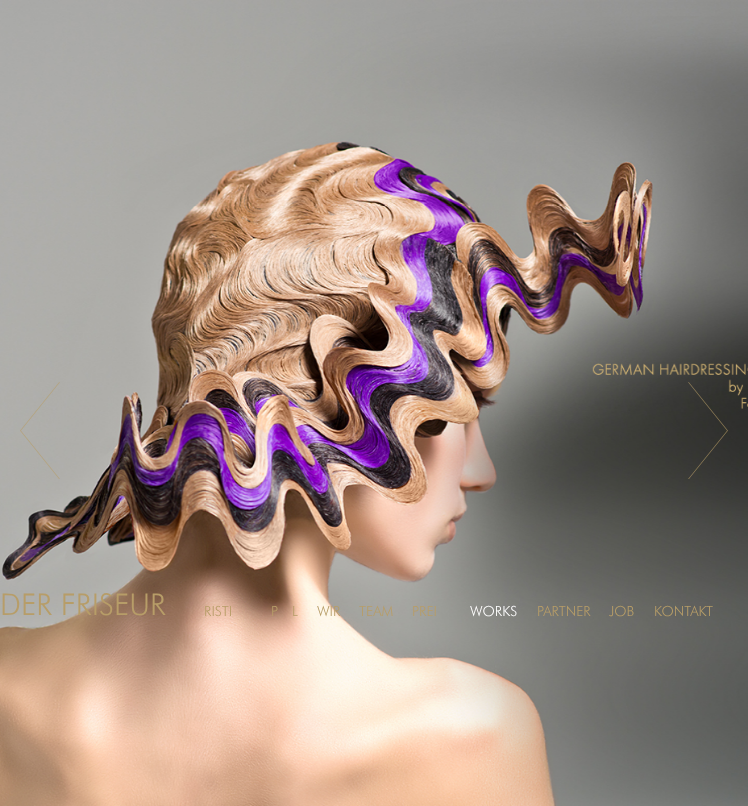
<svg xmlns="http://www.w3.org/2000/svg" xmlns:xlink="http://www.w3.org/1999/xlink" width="748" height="806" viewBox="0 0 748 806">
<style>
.cls-1{font:300 30px Futura;fill:#b79d68}
.cls-2{font:300 14px Futura;fill:#b79d68}
.cls-3{font:300 14px Futura;fill:#ffffff}
</style>
<rect width="100%" height="100%" fill="#ffffff"/>
<image xlink:href="image0.png" x="0" y="0" width="748" height="806"/>
<image xlink:href="image1.png" x="20" y="382" width="40" height="97"/>
<image xlink:href="image2.png" x="688" y="382" width="40" height="97"/>
<text class="cls-1" x="0" y="615">DER FRISEUR</text>
<text class="cls-2" x="204" y="616">RISTI</text>
<text class="cls-2" x="271" y="616">P</text>
<text class="cls-2" x="292" y="616">L</text>
<text class="cls-2" x="317" y="616">WIR</text>
<text class="cls-2" x="359" y="616">TEAM</text>
<text class="cls-2" x="412" y="616">PREI</text>
<text class="cls-3" x="470" y="616">WORKS</text>
<text class="cls-2" x="537" y="616">PARTNER</text>
<text class="cls-2" x="609" y="616">JOB</text>
<text class="cls-2" x="654" y="616">KONTAKT</text>
</svg>
